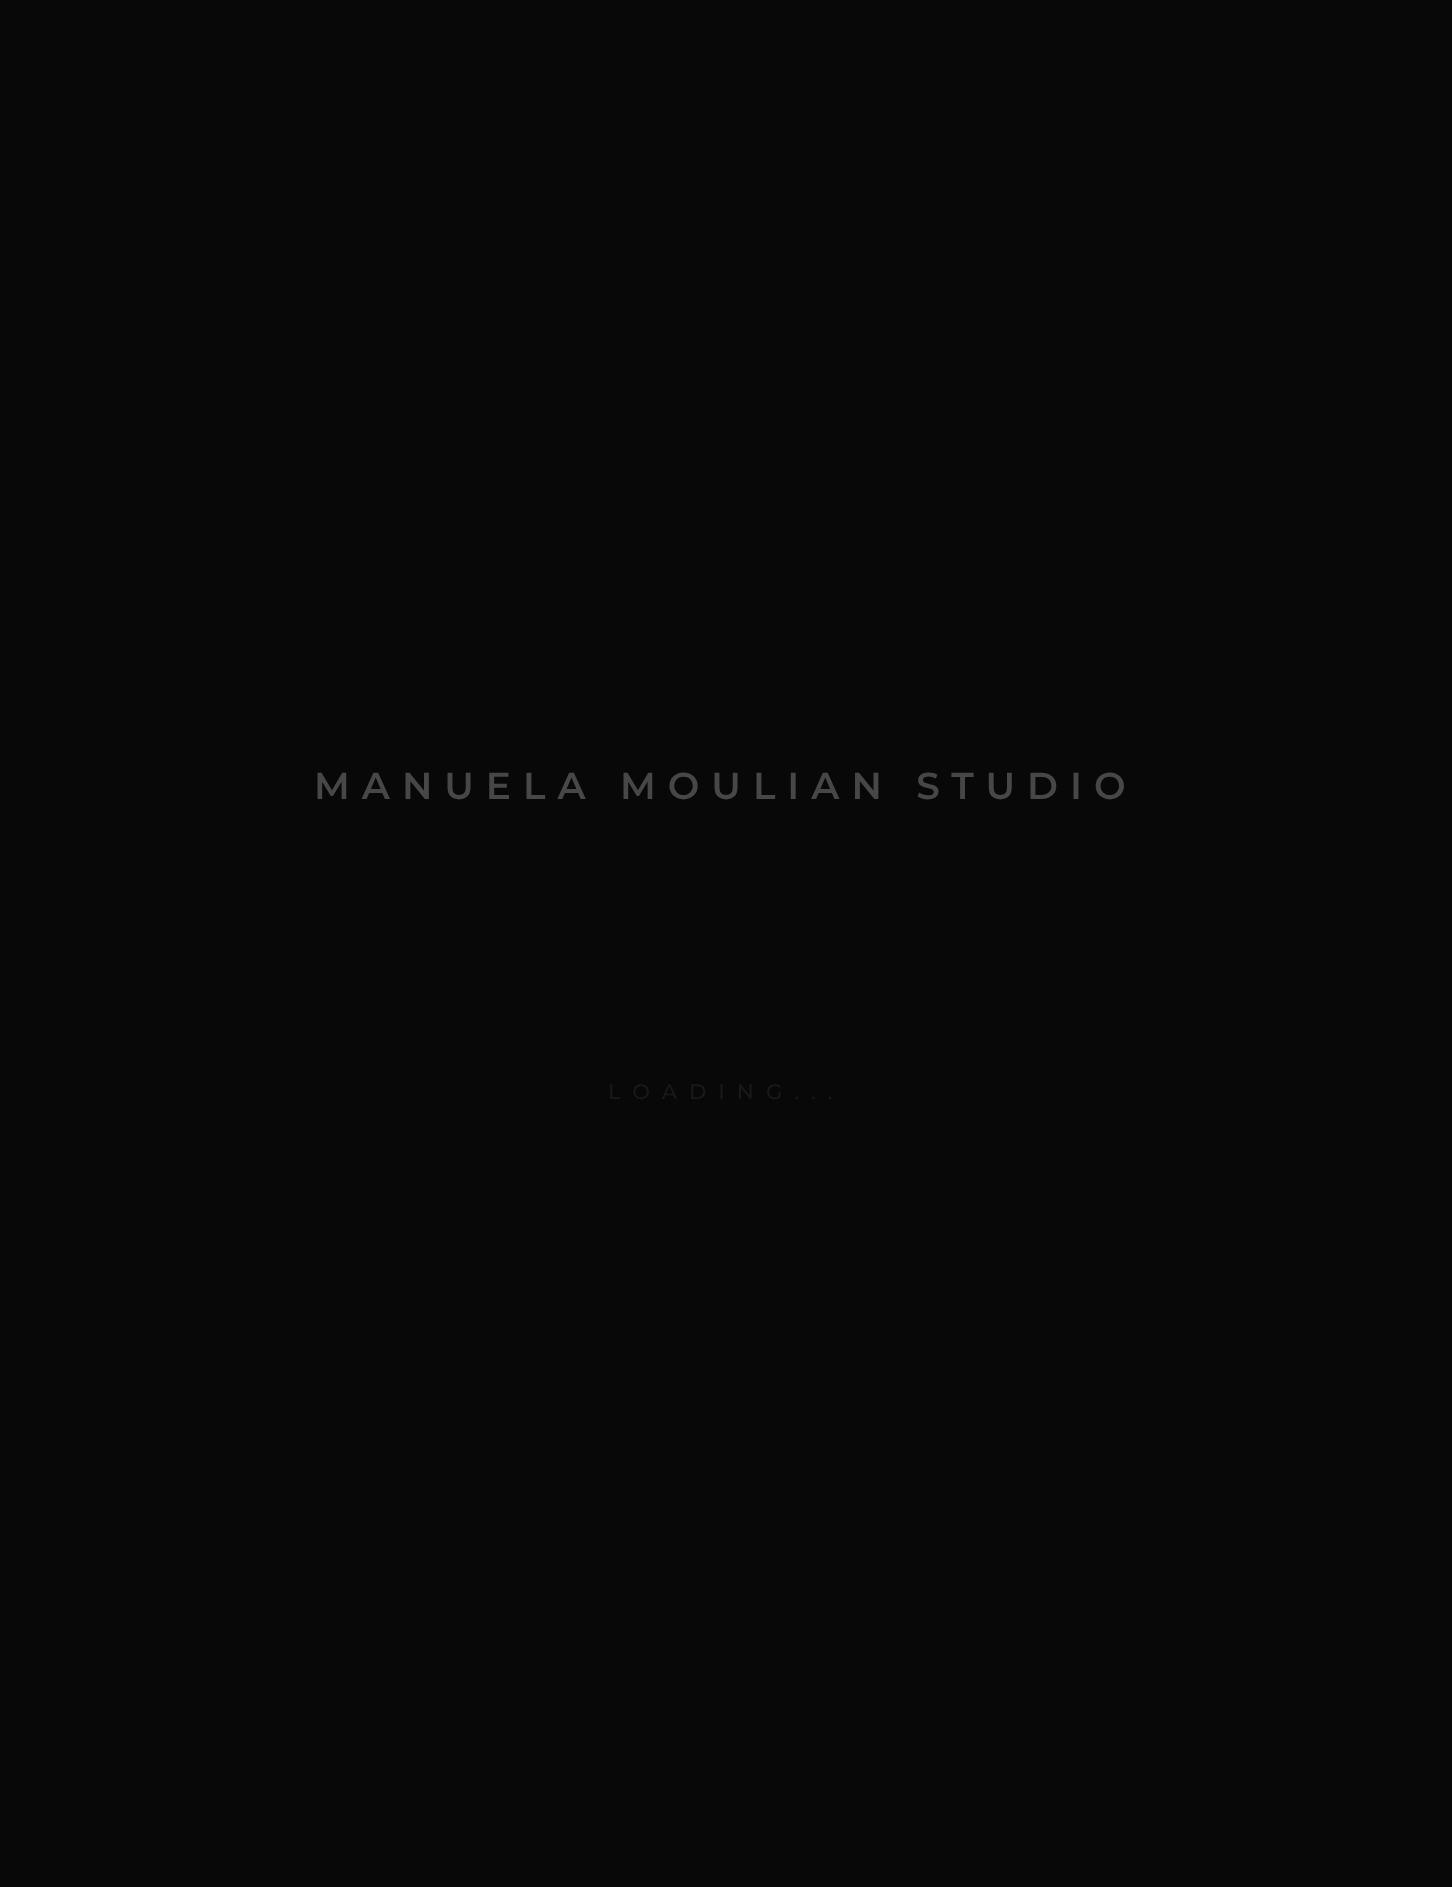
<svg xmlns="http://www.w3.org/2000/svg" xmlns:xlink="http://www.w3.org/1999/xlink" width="1452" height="1887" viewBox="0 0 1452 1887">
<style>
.cls-1{font:600 37.5px Montserrat;letter-spacing:12px;fill:#474747}
.cls-2{font:500 21px Montserrat;letter-spacing:12px;fill:#1a1919}
</style>
<rect width="100%" height="100%" fill="#090808"/>
<text class="cls-1" x="314" y="799">MANUELA MOULIAN STUDIO</text>
<text class="cls-2" x="608" y="1099">LOADING...</text>
</svg>
